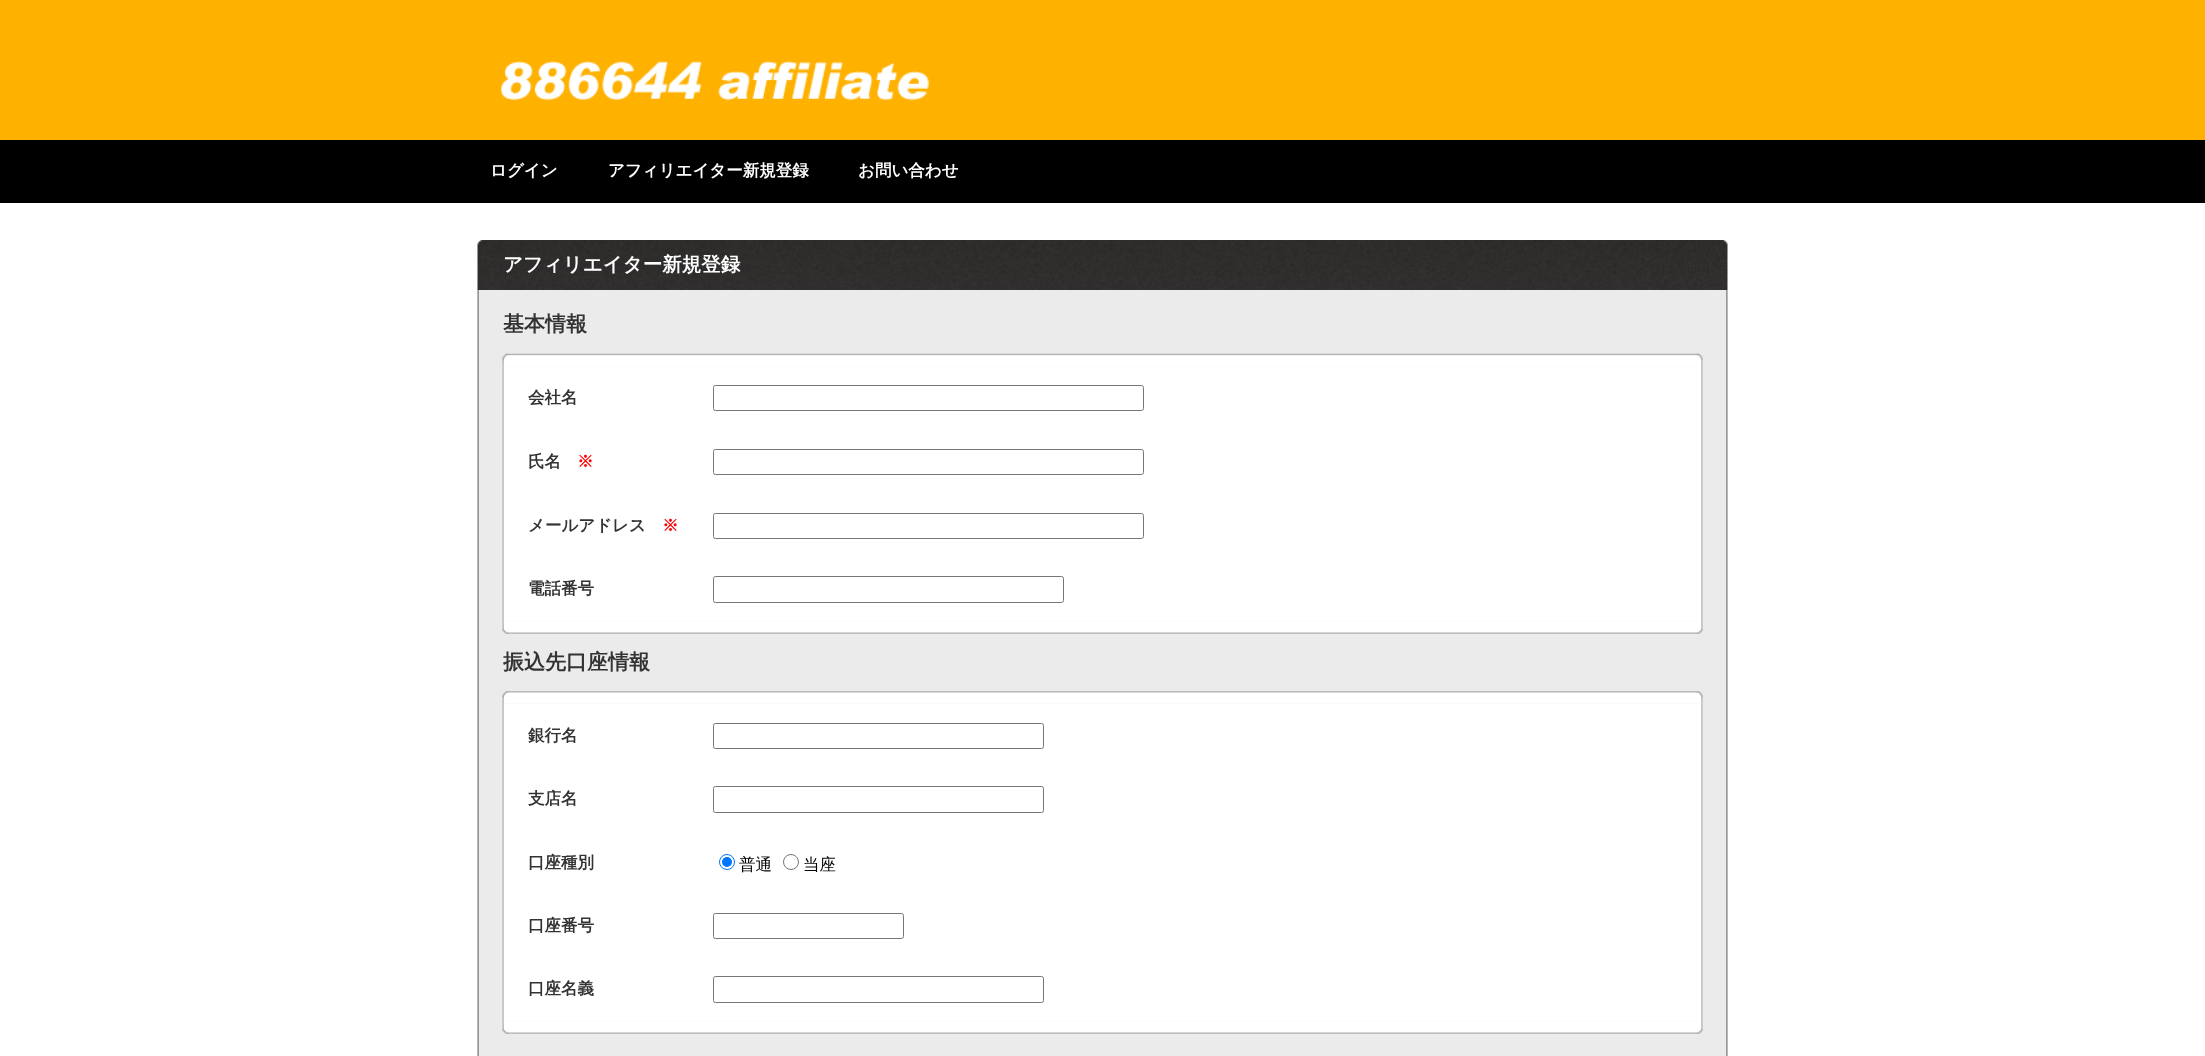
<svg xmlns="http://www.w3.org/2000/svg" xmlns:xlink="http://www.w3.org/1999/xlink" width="2205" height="1056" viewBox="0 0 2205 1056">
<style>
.cls-1{font:bold 16.5px WenQuanYi Zen Hei;fill:#ffffff}
.cls-2{font:bold 19.5px WenQuanYi Zen Hei;fill:#ffffff}
.cls-3{font:bold 21px WenQuanYi Zen Hei;fill:#333333}
.cls-4{font:bold 16.5px WenQuanYi Zen Hei;fill:#333333}
.cls-5{font:bold 16.5px WenQuanYi Zen Hei;fill:#ff0000}
.cls-6{font:500 16.5px WenQuanYi Zen Hei;fill:#000000}
</style>
<rect width="100%" height="100%" fill="#ffffff"/>
<rect fill="#ffb100" x="0" y="0" width="2205" height="140"/>
<image xlink:href="image0.png" x="501" y="61" width="428" height="40"/>
<rect fill="#000000" x="0" y="140" width="2205" height="63"/>
<image xlink:href="image1.png" x="477" y="240" width="1251" height="50"/>
<image xlink:href="image2.png" x="477" y="290" width="1251" height="766"/>
<image xlink:href="image3.png" x="502" y="353" width="1201" height="14"/>
<image xlink:href="image4.png" x="502" y="366" width="1201" height="256"/>
<rect fill="none" stroke="#767676" x="713.5" y="385.5" width="430" height="25" rx="2"/>
<rect fill="none" stroke="#767676" x="713.5" y="449.5" width="430" height="25" rx="2"/>
<rect fill="none" stroke="#767676" x="713.5" y="513.5" width="430" height="25" rx="2"/>
<rect fill="none" stroke="#767676" x="713.5" y="576.5" width="350" height="26" rx="2"/>
<image xlink:href="image5.png" x="502" y="621" width="1201" height="13"/>
<image xlink:href="image6.png" x="502" y="691" width="1201" height="13"/>
<image xlink:href="image7.png" x="502" y="703" width="1201" height="319"/>
<rect fill="none" stroke="#767676" x="713.5" y="723.5" width="330" height="25" rx="2"/>
<rect fill="none" stroke="#767676" x="713.5" y="786.5" width="330" height="26" rx="2"/>
<circle fill="none" stroke="#0075ff" cx="727" cy="862" r="7.5"/>
<circle fill="#0075ff" cx="727" cy="862" r="5"/>
<circle fill="none" stroke="#767676" cx="791" cy="862" r="7.5"/>
<rect fill="none" stroke="#767676" x="713.5" y="913.5" width="190" height="25" rx="2"/>
<rect fill="none" stroke="#767676" x="713.5" y="976.5" width="330" height="26" rx="2"/>
<image xlink:href="image5.png" x="502" y="1021" width="1201" height="13"/>
<text class="cls-1" x="490" y="176">ログイン</text>
<text class="cls-1" x="608" y="176">アフィリエイター新規登録</text>
<text class="cls-1" x="858" y="176">お問い合わせ</text>
<text class="cls-2" x="503" y="271">アフィリエイター新規登録</text>
<text class="cls-3" x="503" y="331">基本情報</text>
<text class="cls-4" x="528" y="403">会社名</text>
<text class="cls-4" x="528" y="467">氏名</text>
<text class="cls-5" x="577" y="467">※</text>
<text class="cls-4" x="528" y="531">メールアドレス</text>
<text class="cls-5" x="662" y="531">※</text>
<text class="cls-4" x="528" y="594">電話番号</text>
<text class="cls-3" x="503" y="669">振込先口座情報</text>
<text class="cls-4" x="528" y="741">銀行名</text>
<text class="cls-4" x="528" y="804">支店名</text>
<text class="cls-4" x="528" y="868">口座種別</text>
<text class="cls-6" x="739" y="870">普通</text>
<text class="cls-6" x="803" y="870">当座</text>
<text class="cls-4" x="528" y="931">口座番号</text>
<text class="cls-4" x="528" y="994">口座名義</text>
</svg>
